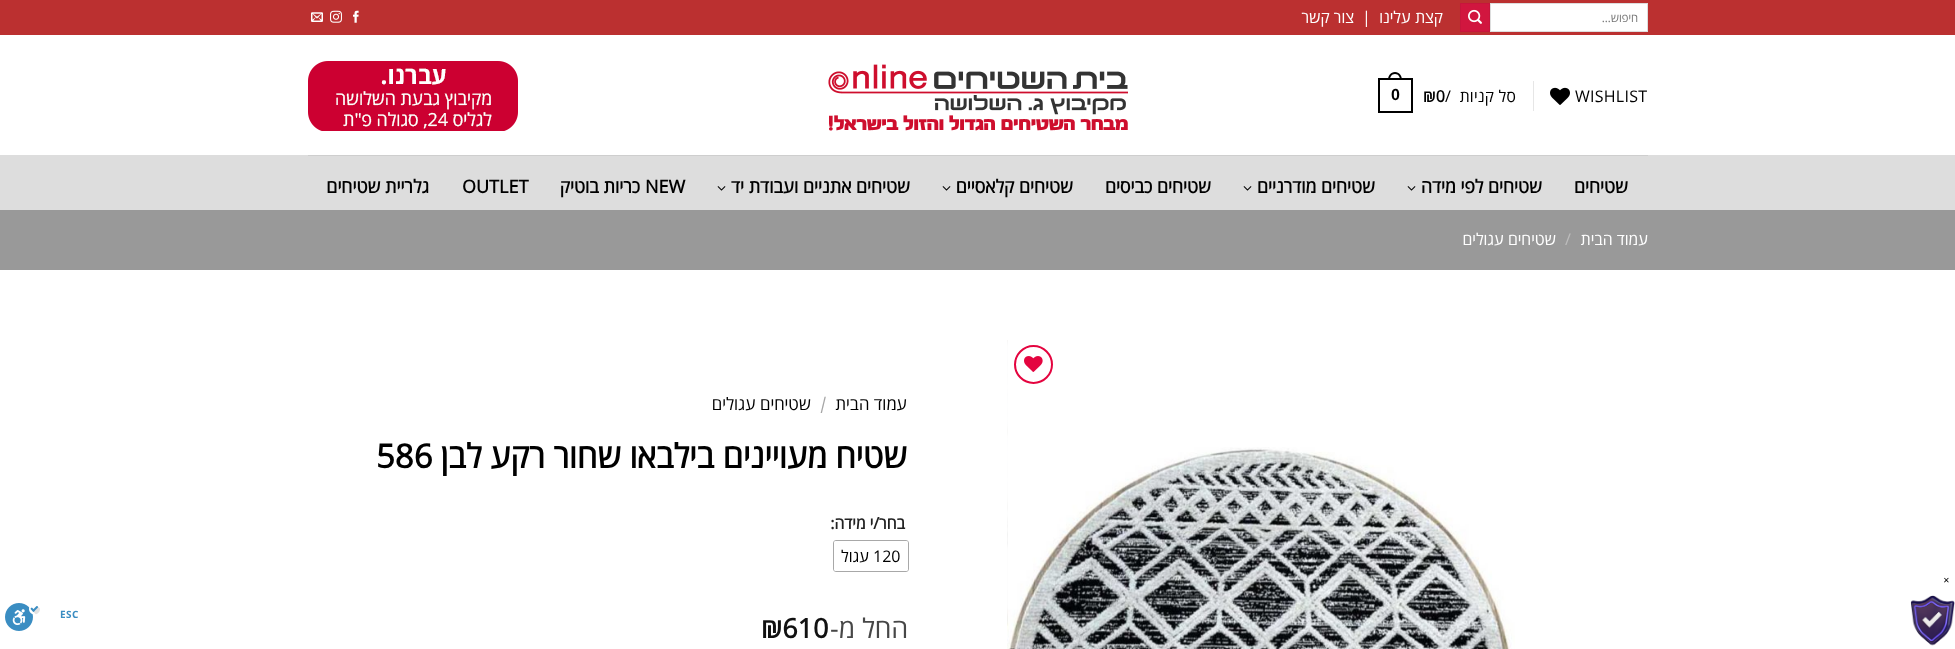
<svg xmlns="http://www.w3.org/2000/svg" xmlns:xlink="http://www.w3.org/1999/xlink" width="1955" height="649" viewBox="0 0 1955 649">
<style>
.cls-1{font:8px DejaVu Sans;fill:#000000}
.cls-2{font:11.5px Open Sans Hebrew;direction:rtl;fill:#757575}
.cls-3{font:16px Open Sans Hebrew;direction:rtl;fill:#ffffff}
.cls-4{font:16px Open Sans Hebrew;fill:#ffffff}
.cls-5{font:16px Open Sans Hebrew;letter-spacing:0.25px;fill:#000000}
.cls-6{font:16px Open Sans Hebrew;letter-spacing:0.25px;direction:rtl;fill:#000000}
.cls-7{font:bold 16px Open Sans Hebrew;letter-spacing:0.25px;fill:#000000}
.cls-8{font:bold 16px Liberation Sans;letter-spacing:0.25px;fill:#000000}
.cls-9{font:bold 18px Open Sans Hebrew;direction:rtl;fill:#000000}
.cls-10{font:bold 18px Open Sans Hebrew;fill:#000000}
.cls-11{font:16px Open Sans Hebrew;fill:#bdbdbd}
.cls-12{font:17px Open Sans Hebrew;direction:rtl;fill:#000000}
.cls-13{font:300 17px Merriweather;fill:#a6a6a6}
.cls-14{font:bold 33px Open Sans Hebrew;direction:rtl;fill:#000000}
.cls-15{font:bold 33px Open Sans Hebrew;fill:#000000}
.cls-16{font:bold 16px Open Sans Hebrew;direction:rtl;fill:#222222}
.cls-17{font:16px Open Sans Hebrew;fill:#000000}
.cls-18{font:16px Open Sans Hebrew;direction:rtl;fill:#000000}
.cls-19{font:27px Open Sans Hebrew;direction:rtl;fill:#474747}
.cls-20{font:bold 27px Open Sans Hebrew;fill:#111111}
.cls-21{font:bold 10px 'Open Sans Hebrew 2';letter-spacing:0.5px;fill:#3a8dc2}
</style>
<rect width="100%" height="100%" fill="#ffffff"/>
<image xlink:href="image0.png" x="1910" y="595" width="45" height="51"/>
<rect fill="#bb3030" x="0" y="0" width="1955" height="35"/>
<rect fill="#ffffff" stroke="#dddddd" x="1490.5" y="3.5" width="157" height="28"/>
<rect fill="#d1163f" stroke="#c7153c" x="1460.5" y="3.5" width="29" height="28"/>
<image xlink:href="image1.png" x="1468" y="9" width="14" height="15"/>
<image xlink:href="image2.png" x="353" y="10" width="6" height="13"/>
<image xlink:href="image3.png" x="330" y="10" width="12" height="13"/>
<image xlink:href="image4.png" x="311" y="12" width="12" height="10"/>
<image xlink:href="image5.png" x="1550" y="87" width="20" height="18"/>
<rect fill="#e6e6e6" x="1533" y="81" width="1" height="30"/>
<rect fill="none" stroke="#000000" stroke-width="2" x="1379" y="79" width="33" height="33"/>
<path fill="#000000" fill-rule="evenodd" d="M1395 72C1399.5 72 1402 76 1402 80H1388C1388 76 1390.5 72 1395 72ZM1395 74C1398.5 74 1400 77 1400 80H1390C1390 77 1391.5 74 1395 74Z"/>
<image xlink:href="image6.png" x="828" y="64" width="300" height="67"/>
<image xlink:href="image7.png" x="308" y="61" width="210" height="70"/>
<rect fill="#dddddd" x="0" y="155" width="1955" height="55"/>
<rect fill="#cecece" x="308" y="155" width="1340" height="1"/>
<image xlink:href="image8.png" x="1407" y="186" width="9" height="5"/>
<image xlink:href="image8.png" x="1243" y="186" width="9" height="5"/>
<image xlink:href="image8.png" x="942" y="186" width="9" height="5"/>
<image xlink:href="image8.png" x="717" y="186" width="9" height="5"/>
<rect fill="#999999" x="0" y="210" width="1955" height="60"/>
<image xlink:href="image10.png" x="1007" y="447" width="508" height="202"/>
<image xlink:href="image9.png" x="1007" y="340" width="1" height="286"/>
<circle fill="none" stroke="#e4043f" stroke-width="2" cx="1033.5" cy="364.5" r="18.5"/>
<image xlink:href="image11.png" x="1024" y="356" width="19" height="16"/>
<rect fill="none" stroke="#a8a8a8" x="833.5" y="540.5" width="75" height="31" rx="2.5"/>
<rect fill="#ffffff" x="834" y="541" width="74" height="30" rx="2"/>
<image xlink:href="image12.png" x="5" y="603" width="35" height="28"/>
<text class="cls-1" x="1943" y="583">✕</text>
<text class="cls-2" x="1638" y="22">חיפוש…</text>
<text class="cls-3" x="1443" y="23">קצת עלינו</text>
<text class="cls-4" x="1362" y="23">|</text>
<text class="cls-3" x="1354" y="23">צור קשר</text>
<text class="cls-5" x="1575" y="102">WISHLIST</text>
<text class="cls-6" x="1516" y="102">סל קניות</text>
<text class="cls-5" x="1445" y="102">/</text>
<text class="cls-7" x="1423" y="102">₪0</text>
<text class="cls-8" x="1391" y="100">0</text>
<text class="cls-9" x="1628" y="193">שטיחים</text>
<text class="cls-9" x="1542" y="193">שטיחים לפי מידה</text>
<text class="cls-9" x="1375" y="193">שטיחים מודרניים</text>
<text class="cls-9" x="1211" y="193">שטיחים כביסים</text>
<text class="cls-9" x="1073" y="193">שטיחים קלאסיים</text>
<text class="cls-9" x="910" y="193">שטיחים אתניים ועבודת יד</text>
<text class="cls-10" x="645" y="193">NEW</text>
<text class="cls-9" x="640" y="193">כריות בוטיק</text>
<text class="cls-10" x="462" y="193">OUTLET</text>
<text class="cls-9" x="429" y="193">גלריית שטיחים</text>
<text class="cls-3" x="1648" y="245">עמוד הבית</text>
<text class="cls-11" x="1565" y="245">/</text>
<text class="cls-3" x="1556" y="245">שטיחים עגולים</text>
<text class="cls-12" x="907" y="410">עמוד הבית</text>
<text class="cls-13" x="820" y="410">/</text>
<text class="cls-12" x="811" y="410">שטיחים עגולים</text>
<text class="cls-14" x="907" y="468">שטיח מעויינים בילבאו שחור רקע לבן</text>
<text class="cls-15" x="376" y="468">586</text>
<text class="cls-16" x="905" y="529">בחר/י מידה:</text>
<text class="cls-17" x="873" y="562">120</text>
<text class="cls-18" x="869" y="562">עגול</text>
<text class="cls-19" x="908" y="638">החל מ-</text>
<text class="cls-20" x="761" y="638">₪610</text>
<text class="cls-21" x="60" y="618">ESC</text>
</svg>
